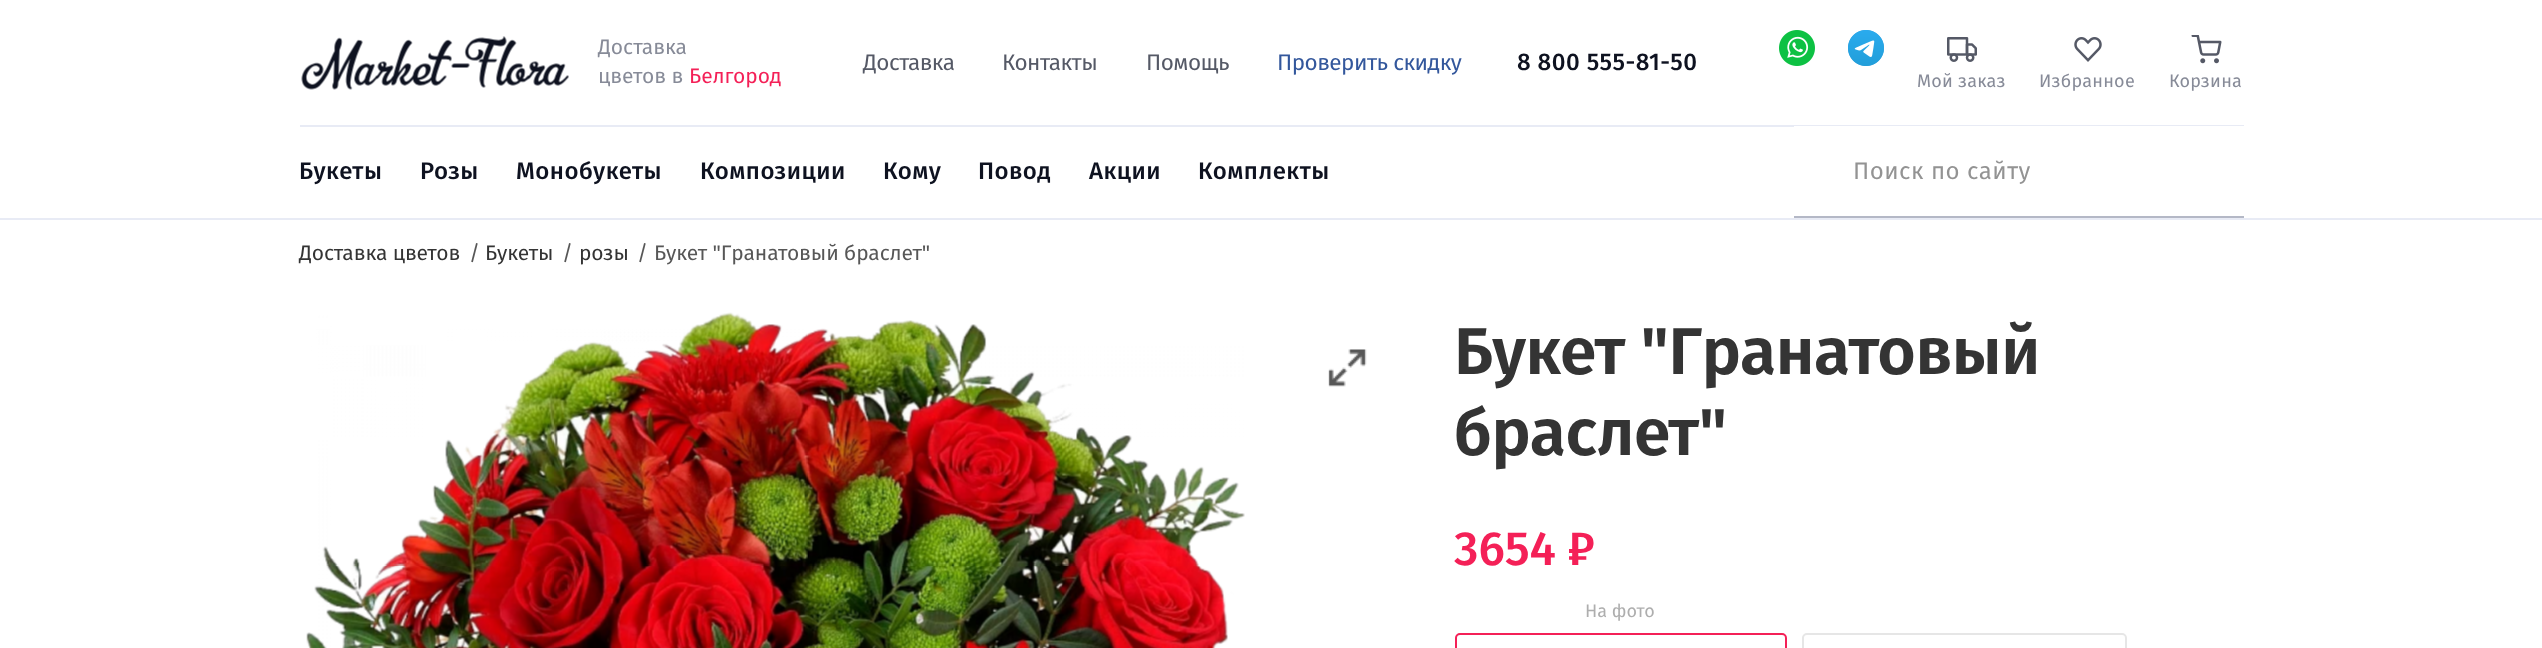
<svg xmlns="http://www.w3.org/2000/svg" xmlns:xlink="http://www.w3.org/1999/xlink" width="2542" height="648" viewBox="0 0 2542 648">
<style>
.cls-1{font:21px Fira Sans;fill:#878b98}
.cls-2{font:21px Fira Sans;fill:#f42057}
.cls-3{font:22.5px Fira Sans;letter-spacing:-0.5px;fill:#555966}
.cls-4{font:22.5px Fira Sans;letter-spacing:-0.5px;fill:#33579c}
.cls-5{font:500 24px Fira Sans;letter-spacing:0.5px;fill:#0e1220}
.cls-6{font:18px Fira Sans;letter-spacing:0.25px;fill:#878b98}
.cls-7{font:24px Fira Sans;letter-spacing:0.5px;fill:#939393}
.cls-8{font:21px Fira Sans;letter-spacing:-0.1px;fill:#343434}
.cls-9{font:21px Fira Sans;letter-spacing:-0.1px;fill:#575757}
.cls-10{font:600 66px Fira Sans;letter-spacing:-0.4px;fill:#343434}
.cls-11{font:500 48px Fira Sans;fill:#f42057}
.cls-12{font:18px Fira Sans;fill:#aeaeae}
</style>
<defs>
<clipPath id="clip1"><rect x="1569" y="525" width="26" height="48"/></clipPath>
</defs>
<rect width="100%" height="100%" fill="#ffffff"/>
<rect fill="#e8ebf5" x="0" y="218" width="2542" height="2"/>
<rect fill="#e8ebf5" x="300" y="125" width="1944" height="2"/>
<image xlink:href="image0.png" x="301" y="36" width="268" height="54"/>
<image xlink:href="image1.png" x="1779" y="30" width="36" height="36"/>
<image xlink:href="image2.png" x="1848" y="30" width="36" height="36"/>
<image xlink:href="image3.png" x="1947" y="37" width="30" height="25"/>
<image xlink:href="image4.png" x="2074" y="37" width="28" height="25"/>
<image xlink:href="image5.png" x="2191" y="35" width="31" height="29"/>
<rect fill="#b4b8c6" x="1794" y="216" width="450" height="2"/>
<rect fill="#ffffff" x="1794" y="126" width="450" height="1"/>
<image xlink:href="image6.png" x="306" y="312" width="939" height="336"/>
<image xlink:href="image7.png" x="1328" y="349" width="39" height="38"/>
<rect fill="none" stroke="#f42057" stroke-width="2" x="1456" y="634" width="330" height="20" rx="4"/>
<rect fill="none" stroke="#e6e6e6" stroke-width="2" x="1803" y="634" width="323" height="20" rx="4"/>
<text class="cls-1"><tspan x="598" y="54">Доставка</tspan><tspan x="598" y="83">цветов в</tspan></text>
<text class="cls-2" x="689" y="83">Белгород</text>
<text class="cls-3" x="863" y="70">Доставка</text>
<text class="cls-3" x="1002" y="70">Контакты</text>
<text class="cls-3" x="1146" y="70">Помощь</text>
<text class="cls-4" x="1277" y="70">Проверить скидку</text>
<text class="cls-5" x="1517" y="70">8 800 555-81-50</text>
<text class="cls-6" x="1917" y="87">Мой заказ</text>
<text class="cls-6" x="2039" y="87">Избранное</text>
<text class="cls-6" x="2169" y="87">Корзина</text>
<text class="cls-5" x="299" y="179">Букеты</text>
<text class="cls-5" x="420" y="179">Розы</text>
<text class="cls-5" x="516" y="179">Монобукеты</text>
<text class="cls-5" x="700" y="179">Композиции</text>
<text class="cls-5" x="883" y="179">Кому</text>
<text class="cls-5" x="978" y="179">Повод</text>
<text class="cls-5" x="1089" y="179">Акции</text>
<text class="cls-5" x="1198" y="179">Комплекты</text>
<text class="cls-7" x="1853" y="179">Поиск по сайту</text>
<text class="cls-8" x="299" y="260">Доставка цветов</text>
<text class="cls-9" x="469" y="260">/</text>
<text class="cls-8" x="485" y="260">Букеты</text>
<text class="cls-9" x="562" y="260">/</text>
<text class="cls-8" x="579" y="260">розы</text>
<text class="cls-9" x="637" y="260">/</text>
<text class="cls-9" x="654" y="260">Букет "Гранатовый браслет"</text>
<text class="cls-10"><tspan x="1454" y="374">Букет "Гранатовый</tspan><tspan x="1454" y="455">браслет"</tspan></text>
<text class="cls-11" x="1454" y="565">3654</text>
<g clip-path="url(#clip1)">
<text class="cls-11" x="1567" y="565">₽</text>
</g>
<text class="cls-12" x="1585" y="617">На фото</text>
</svg>
